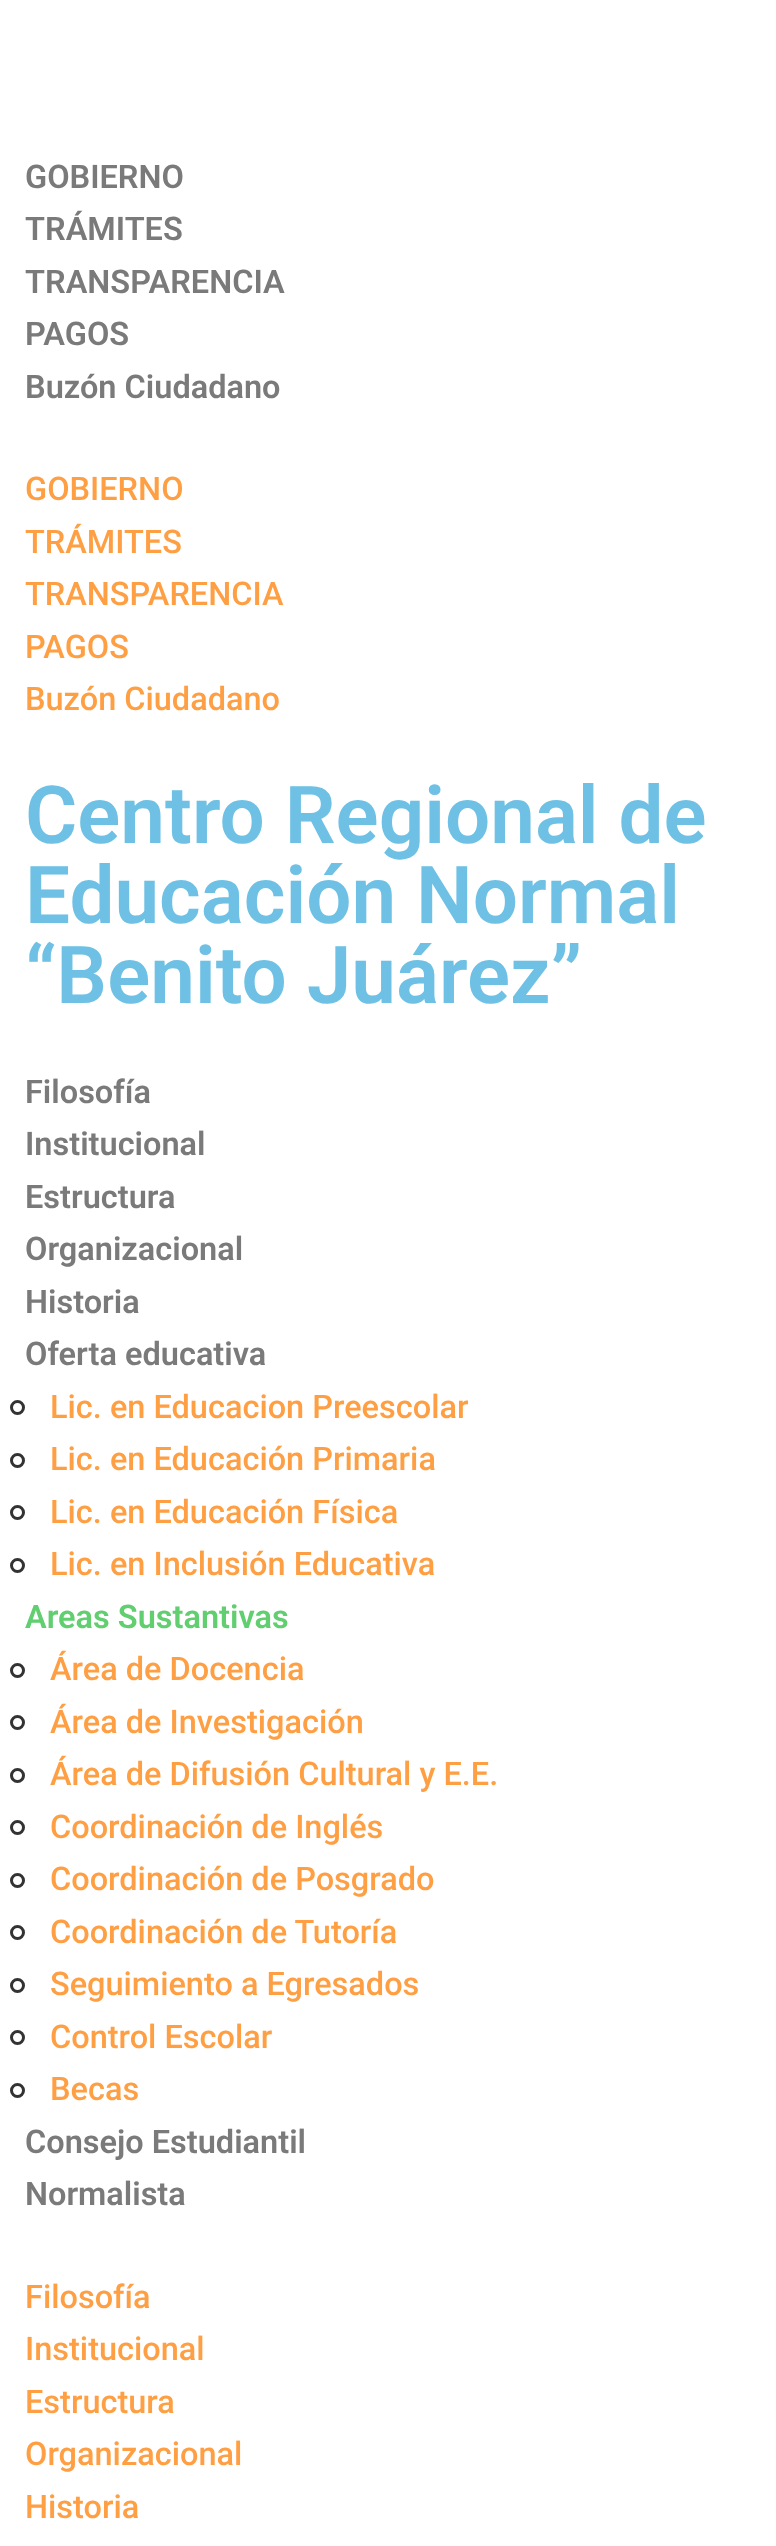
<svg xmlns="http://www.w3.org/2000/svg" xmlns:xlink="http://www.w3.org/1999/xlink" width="776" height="2546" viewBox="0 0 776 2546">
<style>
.cls-1{font:600 32.5px Roboto;fill:#7a7a7a}
.cls-2{font:500 32.5px Roboto;fill:#ff9f43}
.cls-3{font:600 80px Roboto;fill:#6ec1e4}
.cls-4{font:600 32.5px Roboto;fill:#61ce70}
</style>
<rect width="100%" height="100%" fill="#ffffff"/>
<circle fill="none" stroke="#333333" stroke-width="3" cx="17.5" cy="1407.5" r="6"/>
<circle fill="none" stroke="#333333" stroke-width="3" cx="17.5" cy="1460.5" r="6"/>
<circle fill="none" stroke="#333333" stroke-width="3" cx="17.5" cy="1512.5" r="6"/>
<circle fill="none" stroke="#333333" stroke-width="3" cx="17.5" cy="1565.5" r="6"/>
<circle fill="none" stroke="#333333" stroke-width="3" cx="17.5" cy="1670.5" r="6"/>
<circle fill="none" stroke="#333333" stroke-width="3" cx="17.5" cy="1722.5" r="6"/>
<circle fill="none" stroke="#333333" stroke-width="3" cx="17.5" cy="1775.5" r="6"/>
<circle fill="none" stroke="#333333" stroke-width="3" cx="17.5" cy="1827.5" r="6"/>
<circle fill="none" stroke="#333333" stroke-width="3" cx="17.5" cy="1880.5" r="6"/>
<circle fill="none" stroke="#333333" stroke-width="3" cx="17.5" cy="1932.5" r="6"/>
<circle fill="none" stroke="#333333" stroke-width="3" cx="17.5" cy="1985.5" r="6"/>
<circle fill="none" stroke="#333333" stroke-width="3" cx="17.5" cy="2037.5" r="6"/>
<circle fill="none" stroke="#333333" stroke-width="3" cx="17.5" cy="2090.5" r="6"/>
<text class="cls-1"><tspan x="25" y="188">GOBIERNO</tspan><tspan x="25" y="240">TRÁMITES</tspan><tspan x="25" y="293">TRANSPARENCIA</tspan><tspan x="25" y="345">PAGOS</tspan><tspan x="25" y="398">Buzón Ciudadano</tspan></text>
<text class="cls-2"><tspan x="25" y="500">GOBIERNO</tspan><tspan x="25" y="553">TRÁMITES</tspan><tspan x="25" y="605">TRANSPARENCIA</tspan><tspan x="25" y="658">PAGOS</tspan><tspan x="25" y="710">Buzón Ciudadano</tspan></text>
<text class="cls-3"><tspan x="25" y="843">Centro Regional de</tspan><tspan x="25" y="923">Educación Normal</tspan><tspan x="25" y="1003">“Benito Juárez”</tspan></text>
<text class="cls-1"><tspan x="25" y="1103">Filosofía</tspan><tspan x="25" y="1155">Institucional</tspan><tspan x="25" y="1208">Estructura</tspan><tspan x="25" y="1260">Organizacional</tspan><tspan x="25" y="1313">Historia</tspan><tspan x="25" y="1365">Oferta educativa</tspan></text>
<text class="cls-2"><tspan x="50" y="1418">Lic. en Educacion Preescolar</tspan><tspan x="50" y="1470">Lic. en Educación Primaria</tspan><tspan x="50" y="1523">Lic. en Educación Física</tspan><tspan x="50" y="1575">Lic. en Inclusión Educativa</tspan></text>
<text class="cls-4" x="25" y="1628">Areas Sustantivas</text>
<text class="cls-2"><tspan x="50" y="1680">Área de Docencia</tspan><tspan x="50" y="1733">Área de Investigación</tspan><tspan x="50" y="1785">Área de Difusión Cultural y E.E.</tspan><tspan x="50" y="1838">Coordinación de Inglés</tspan><tspan x="50" y="1890">Coordinación de Posgrado</tspan><tspan x="50" y="1943">Coordinación de Tutoría</tspan><tspan x="50" y="1995">Seguimiento a Egresados</tspan><tspan x="50" y="2048">Control Escolar</tspan><tspan x="50" y="2100">Becas</tspan></text>
<text class="cls-1"><tspan x="25" y="2153">Consejo Estudiantil</tspan><tspan x="25" y="2205">Normalista</tspan></text>
<text class="cls-2"><tspan x="25" y="2308">Filosofía</tspan><tspan x="25" y="2360">Institucional</tspan><tspan x="25" y="2413">Estructura</tspan><tspan x="25" y="2465">Organizacional</tspan><tspan x="25" y="2518">Historia</tspan></text>
</svg>
